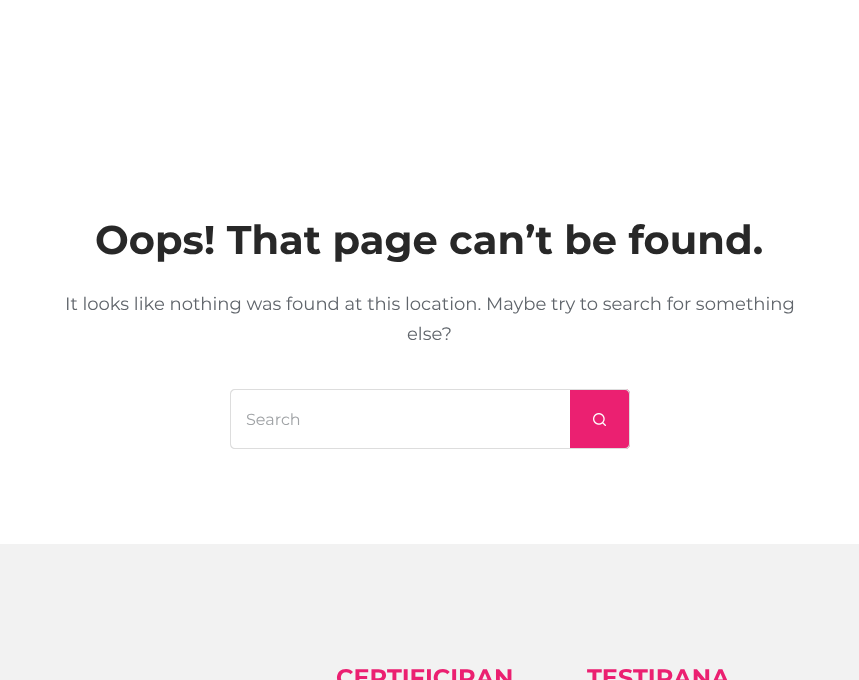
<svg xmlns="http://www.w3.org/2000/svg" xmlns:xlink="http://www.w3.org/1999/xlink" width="859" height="680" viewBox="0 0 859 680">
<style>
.cls-1{font:bold 40px Montserrat;fill:#282828}
.cls-2{font:18px Montserrat;fill:#60656b}
.cls-3{font:16px Montserrat;fill:#a0a3a6}
.cls-4{font:bold 24px Montserrat;fill:#eb2071}
</style>
<rect width="100%" height="100%" fill="#ffffff"/>
<path fill="#dddddd" fill-rule="evenodd" d="M235 389H570V449H235C232 449 230 447 230 444V394C230 391 232 389 235 389ZM235 390H570V448H235C233 448 231 446 231 444V394C231 392 233 390 235 390Z"/>
<path fill="#eb2071" d="M570 389H625C628 389 630 391 630 394V444C630 447 628 449 625 449H570Z"/>
<path fill="#dddddd" fill-rule="evenodd" d="M570 389H625C628 389 630 391 630 394V444C630 447 628 449 625 449H570ZM570 390H625C627 390 629 392 629 394V444C629 446 627 448 625 448H570Z"/>
<image xlink:href="image0.png" x="593" y="413" width="13" height="13"/>
<rect fill="#f2f2f2" x="0" y="544" width="859" height="136"/>
<text class="cls-1" x="95" y="254">Oops! That page can’t be found.</text>
<text class="cls-2" x="65" y="310">It looks like nothing was found at this location. Maybe try to search for something</text>
<text class="cls-2" x="407" y="340">else?</text>
<text class="cls-3" x="246" y="425">Search</text>
<text class="cls-4" x="336" y="686">CERTIFICIRAN</text>
<text class="cls-4" x="587" y="686">TESTIRANA</text>
</svg>
